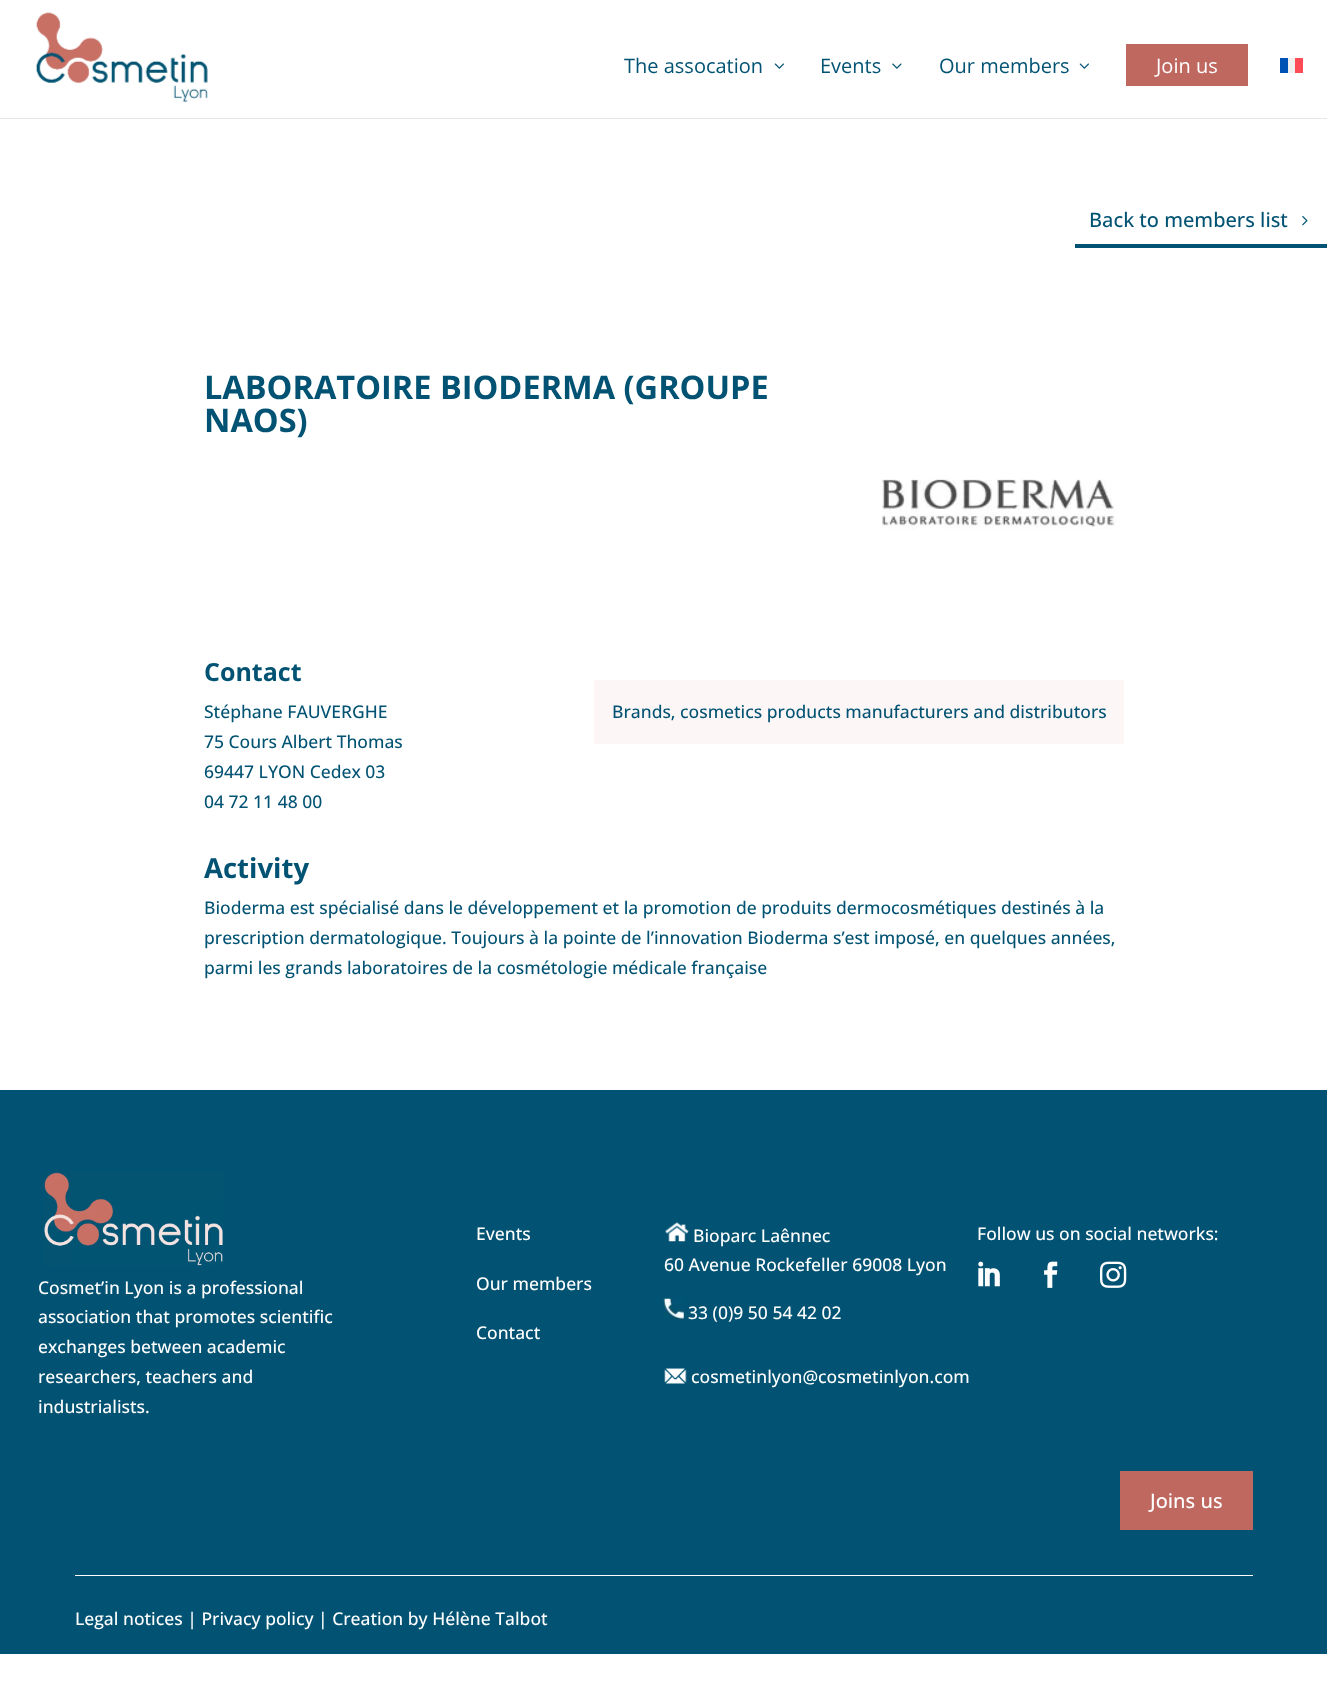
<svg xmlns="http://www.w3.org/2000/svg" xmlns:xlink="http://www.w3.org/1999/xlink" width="1327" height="1685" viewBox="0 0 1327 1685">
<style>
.cls-1{font:20px Open Sans;fill:#025373}
.cls-2{font:20px Open Sans;fill:#ffffff}
.cls-3{font:500 20px Open Sans;fill:#025373}
.cls-4{font:bold 32.5px Open Sans;fill:#025373}
.cls-5{font:bold 25px Open Sans;fill:#025373}
.cls-6{font:500 17.5px Open Sans;fill:#025373}
.cls-7{font:bold 27.5px Open Sans;fill:#025373}
.cls-8{font:500 17.5px Open Sans;fill:#ffffff}
.cls-9{font:500 20px Open Sans;fill:#ffffff}
</style>
<rect width="100%" height="100%" fill="#ffffff"/>
<path fill="#e6e6e6" d="M0 118V119H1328V1V118Z"/>
<image xlink:href="image0.png" x="35" y="12" width="173" height="90"/>
<image xlink:href="image1.png" x="774" y="63" width="10" height="6"/>
<image xlink:href="image2.png" x="892" y="63" width="10" height="6"/>
<image xlink:href="image1.png" x="1079" y="63" width="10" height="6"/>
<rect fill="#bf6860" x="1126" y="44" width="122" height="42"/>
<rect fill="#0052b4" x="1280" y="58" width="8" height="15"/>
<rect fill="#f0f0f0" x="1288" y="58" width="7" height="15"/>
<rect fill="#ff4b55" x="1295" y="58" width="8" height="15"/>
<path fill="#025373" d="M1075 244V248H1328V201V244Z"/>
<image xlink:href="image3.png" x="1302" y="216" width="6" height="10"/>
<image xlink:href="image4.png" x="882" y="479" width="234" height="51"/>
<rect fill="#fcf6f6" x="594" y="680" width="530" height="64"/>
<rect fill="#025373" x="0" y="1090" width="1327" height="564"/>
<image xlink:href="image5.png" x="44" y="1172" width="179" height="94"/>
<image xlink:href="image6.png" x="665" y="1222" width="24" height="20"/>
<image xlink:href="image7.png" x="663" y="1298" width="21" height="21"/>
<image xlink:href="image8.png" x="664" y="1368" width="23" height="16"/>
<image xlink:href="image9.png" x="978" y="1261" width="22" height="26"/>
<image xlink:href="image10.png" x="1044" y="1261" width="14" height="27"/>
<image xlink:href="image11.png" x="1100" y="1261" width="27" height="27"/>
<rect fill="#bf6860" x="1120" y="1471" width="133" height="59"/>
<rect fill="#ffffff" x="75" y="1575" width="1178" height="1"/>
<text class="cls-1" x="624" y="73">The assocation</text>
<text class="cls-1" x="820" y="73">Events</text>
<text class="cls-1" x="939" y="73">Our members</text>
<text class="cls-2" x="1156" y="73">Join us</text>
<text class="cls-3" x="1089" y="227">Back to members list</text>
<text class="cls-4"><tspan x="204" y="399">LABORATOIRE BIODERMA (GROUPE</tspan><tspan x="204" y="432">NAOS)</tspan></text>
<text class="cls-5" x="204" y="681">Contact</text>
<text class="cls-6"><tspan x="204" y="718">Stéphane FAUVERGHE</tspan><tspan x="204" y="748">75 Cours Albert Thomas</tspan><tspan x="204" y="778">69447 LYON Cedex 03</tspan><tspan x="204" y="808">04 72 11 48 00</tspan></text>
<text class="cls-6" x="612" y="718">Brands, cosmetics products manufacturers and distributors</text>
<text class="cls-7" x="204" y="878">Activity</text>
<text class="cls-6"><tspan x="204" y="914">Bioderma est spécialisé dans le développement et la promotion de produits dermocosmétiques destinés à la</tspan><tspan x="204" y="944">prescription dermatologique. Toujours à la pointe de l’innovation Bioderma s’est imposé, en quelques années,</tspan><tspan x="204" y="974">parmi les grands laboratoires de la cosmétologie médicale française</tspan></text>
<text class="cls-8"><tspan x="38" y="1294">Cosmet’in Lyon is a professional</tspan><tspan x="38" y="1323">association that promotes scientific</tspan><tspan x="38" y="1353">exchanges between academic</tspan><tspan x="38" y="1383">researchers, teachers and</tspan><tspan x="38" y="1413">industrialists.</tspan></text>
<text class="cls-8" x="476" y="1240">Events</text>
<text class="cls-8" x="476" y="1290">Our members</text>
<text class="cls-8" x="476" y="1339">Contact</text>
<text class="cls-8" x="693" y="1242">Bioparc Laênnec</text>
<text class="cls-8" x="664" y="1271">60 Avenue Rockefeller 69008 Lyon</text>
<text class="cls-8" x="688" y="1319">33 (0)9 50 54 42 02</text>
<text class="cls-8" x="691" y="1383">cosmetinlyon@cosmetinlyon.com</text>
<text class="cls-8" x="977" y="1240">Follow us on social networks:</text>
<text class="cls-9" x="1150" y="1508">Joins us</text>
<text class="cls-8" x="75" y="1625">Legal notices | Privacy policy | Creation by Hélène Talbot</text>
</svg>
